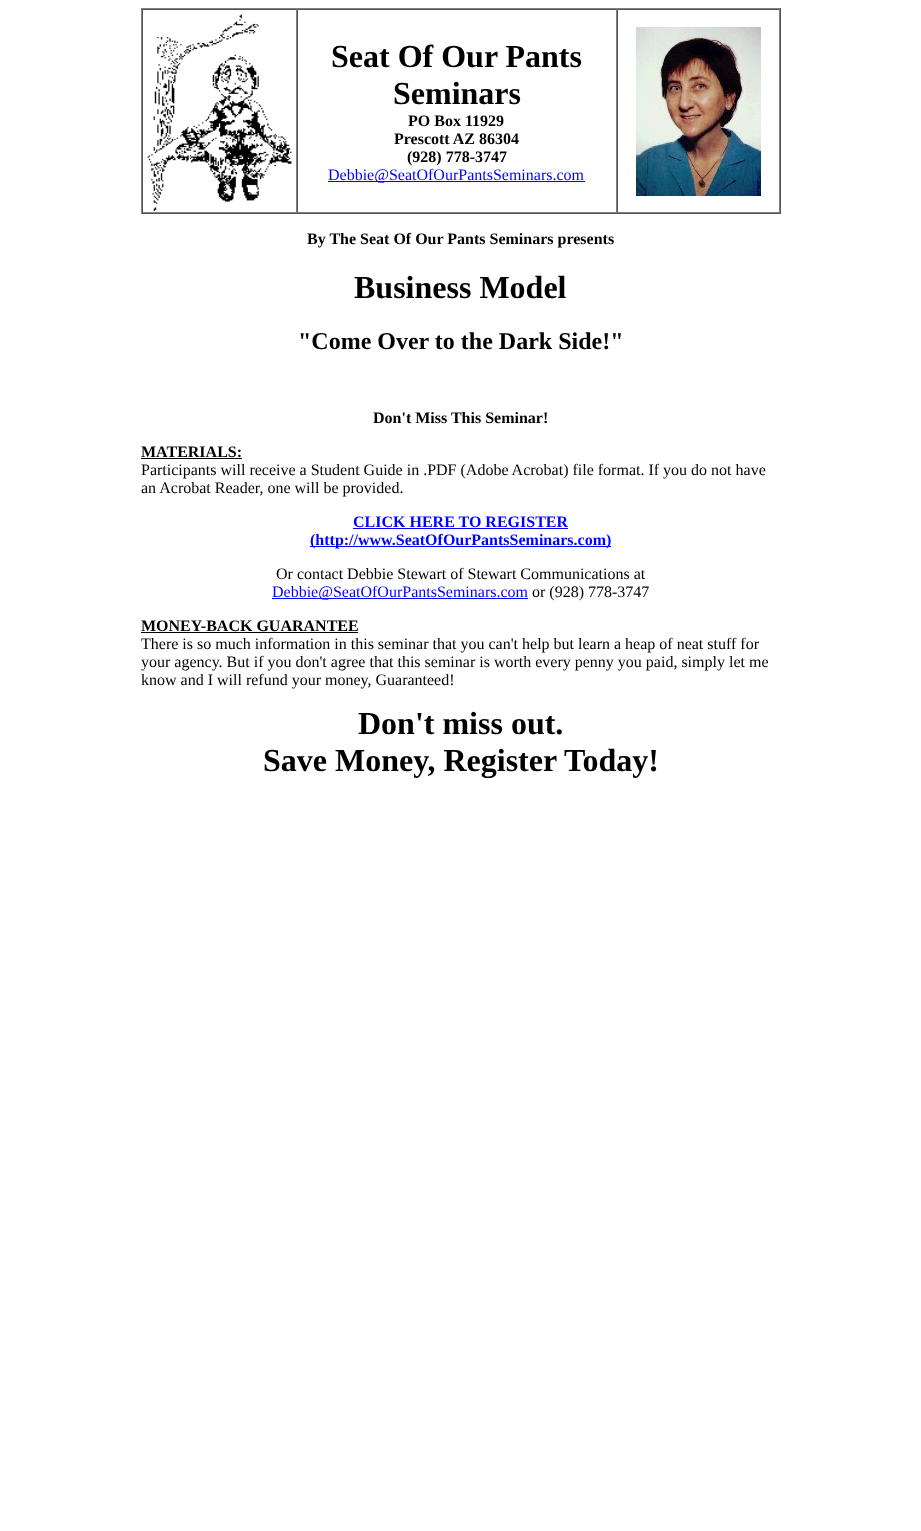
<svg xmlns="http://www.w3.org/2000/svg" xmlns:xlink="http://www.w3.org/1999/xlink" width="921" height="1531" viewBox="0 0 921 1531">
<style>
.cls-1{font:bold 32px Liberation Serif;fill:#000000}
.cls-2{font:bold 16px Liberation Serif;fill:#000000}
.cls-3{font:16px Liberation Serif;fill:#0000ff}
.cls-4{font:bold 24px Liberation Serif;fill:#000000}
.cls-5{font:16px Liberation Serif;fill:#000000}
.cls-6{font:bold 16px Liberation Serif;fill:#0000ff}
</style>
<rect width="100%" height="100%" fill="#ffffff"/>
<rect fill="#808080" x="141" y="8" width="640" height="1"/>
<rect fill="#555555" x="780" y="8" width="1" height="206"/>
<rect fill="#555555" x="141" y="213" width="640" height="1"/>
<rect fill="#808080" x="141" y="8" width="1" height="206"/>
<rect fill="#555555" x="142" y="9" width="638" height="1"/>
<rect fill="#808080" x="296" y="9" width="1" height="204"/>
<rect fill="#808080" x="142" y="212" width="155" height="1"/>
<rect fill="#555555" x="142" y="9" width="1" height="204"/>
<image xlink:href="image0.png" x="147" y="14" width="145" height="197"/>
<rect fill="#808080" x="616" y="9" width="1" height="204"/>
<rect fill="#808080" x="297" y="212" width="320" height="1"/>
<rect fill="#555555" x="297" y="9" width="1" height="204"/>
<rect fill="#0000ff" x="328" y="181" width="257" height="1"/>
<rect fill="#808080" x="779" y="9" width="1" height="204"/>
<rect fill="#808080" x="617" y="212" width="163" height="1"/>
<rect fill="#555555" x="617" y="9" width="1" height="204"/>
<image xlink:href="image1.png" x="636" y="27" width="125" height="169"/>
<rect fill="#000000" x="141" y="458" width="101" height="1"/>
<rect fill="#0000ff" x="353" y="528" width="215" height="1"/>
<rect fill="#0000ff" x="310" y="546" width="301" height="1"/>
<rect fill="#0000ff" x="272" y="598" width="256" height="1"/>
<rect fill="#000000" x="141" y="632" width="217" height="1"/>
<text class="cls-1" x="331" y="67">Seat Of Our Pants</text>
<text class="cls-1" x="393" y="104">Seminars</text>
<text class="cls-2" x="408" y="126">PO Box 11929</text>
<text class="cls-2" x="394" y="144">Prescott AZ 86304</text>
<text class="cls-2" x="407" y="162">(928) 778-3747</text>
<text class="cls-3" x="328" y="180">Debbie@SeatOfOurPantsSeminars.com</text>
<text class="cls-2" x="307" y="244">By The Seat Of Our Pants Seminars presents</text>
<text class="cls-1" x="354" y="298">Business Model</text>
<text class="cls-4" x="298" y="349">"Come Over to the Dark Side!"</text>
<text class="cls-2" x="373" y="423">Don't Miss This Seminar!</text>
<text class="cls-2" x="141" y="457">MATERIALS:</text>
<text class="cls-5"><tspan x="141" y="475">Participants will receive a Student Guide in .PDF (Adobe Acrobat) file format. If you do not have</tspan><tspan x="141" y="493">an Acrobat Reader, one will be provided.</tspan></text>
<text class="cls-6" x="353" y="527">CLICK HERE TO REGISTER</text>
<text class="cls-6" x="310" y="545">(http://www.SeatOfOurPantsSeminars.com)</text>
<text class="cls-5" x="276" y="579">Or contact Debbie Stewart of Stewart Communications at</text>
<text class="cls-3" x="272" y="597">Debbie@SeatOfOurPantsSeminars.com</text>
<text class="cls-5" x="532" y="597">or (928) 778-3747</text>
<text class="cls-2" x="141" y="631">MONEY-BACK GUARANTEE</text>
<text class="cls-5"><tspan x="141" y="649">There is so much information in this seminar that you can't help but learn a heap of neat stuff for</tspan><tspan x="141" y="667">your agency. But if you don't agree that this seminar is worth every penny you paid, simply let me</tspan><tspan x="141" y="685">know and I will refund your money, Guaranteed!</tspan></text>
<text class="cls-1" x="358" y="734">Don't miss out.</text>
<text class="cls-1" x="263" y="771">Save Money, Register Today!</text>
</svg>
